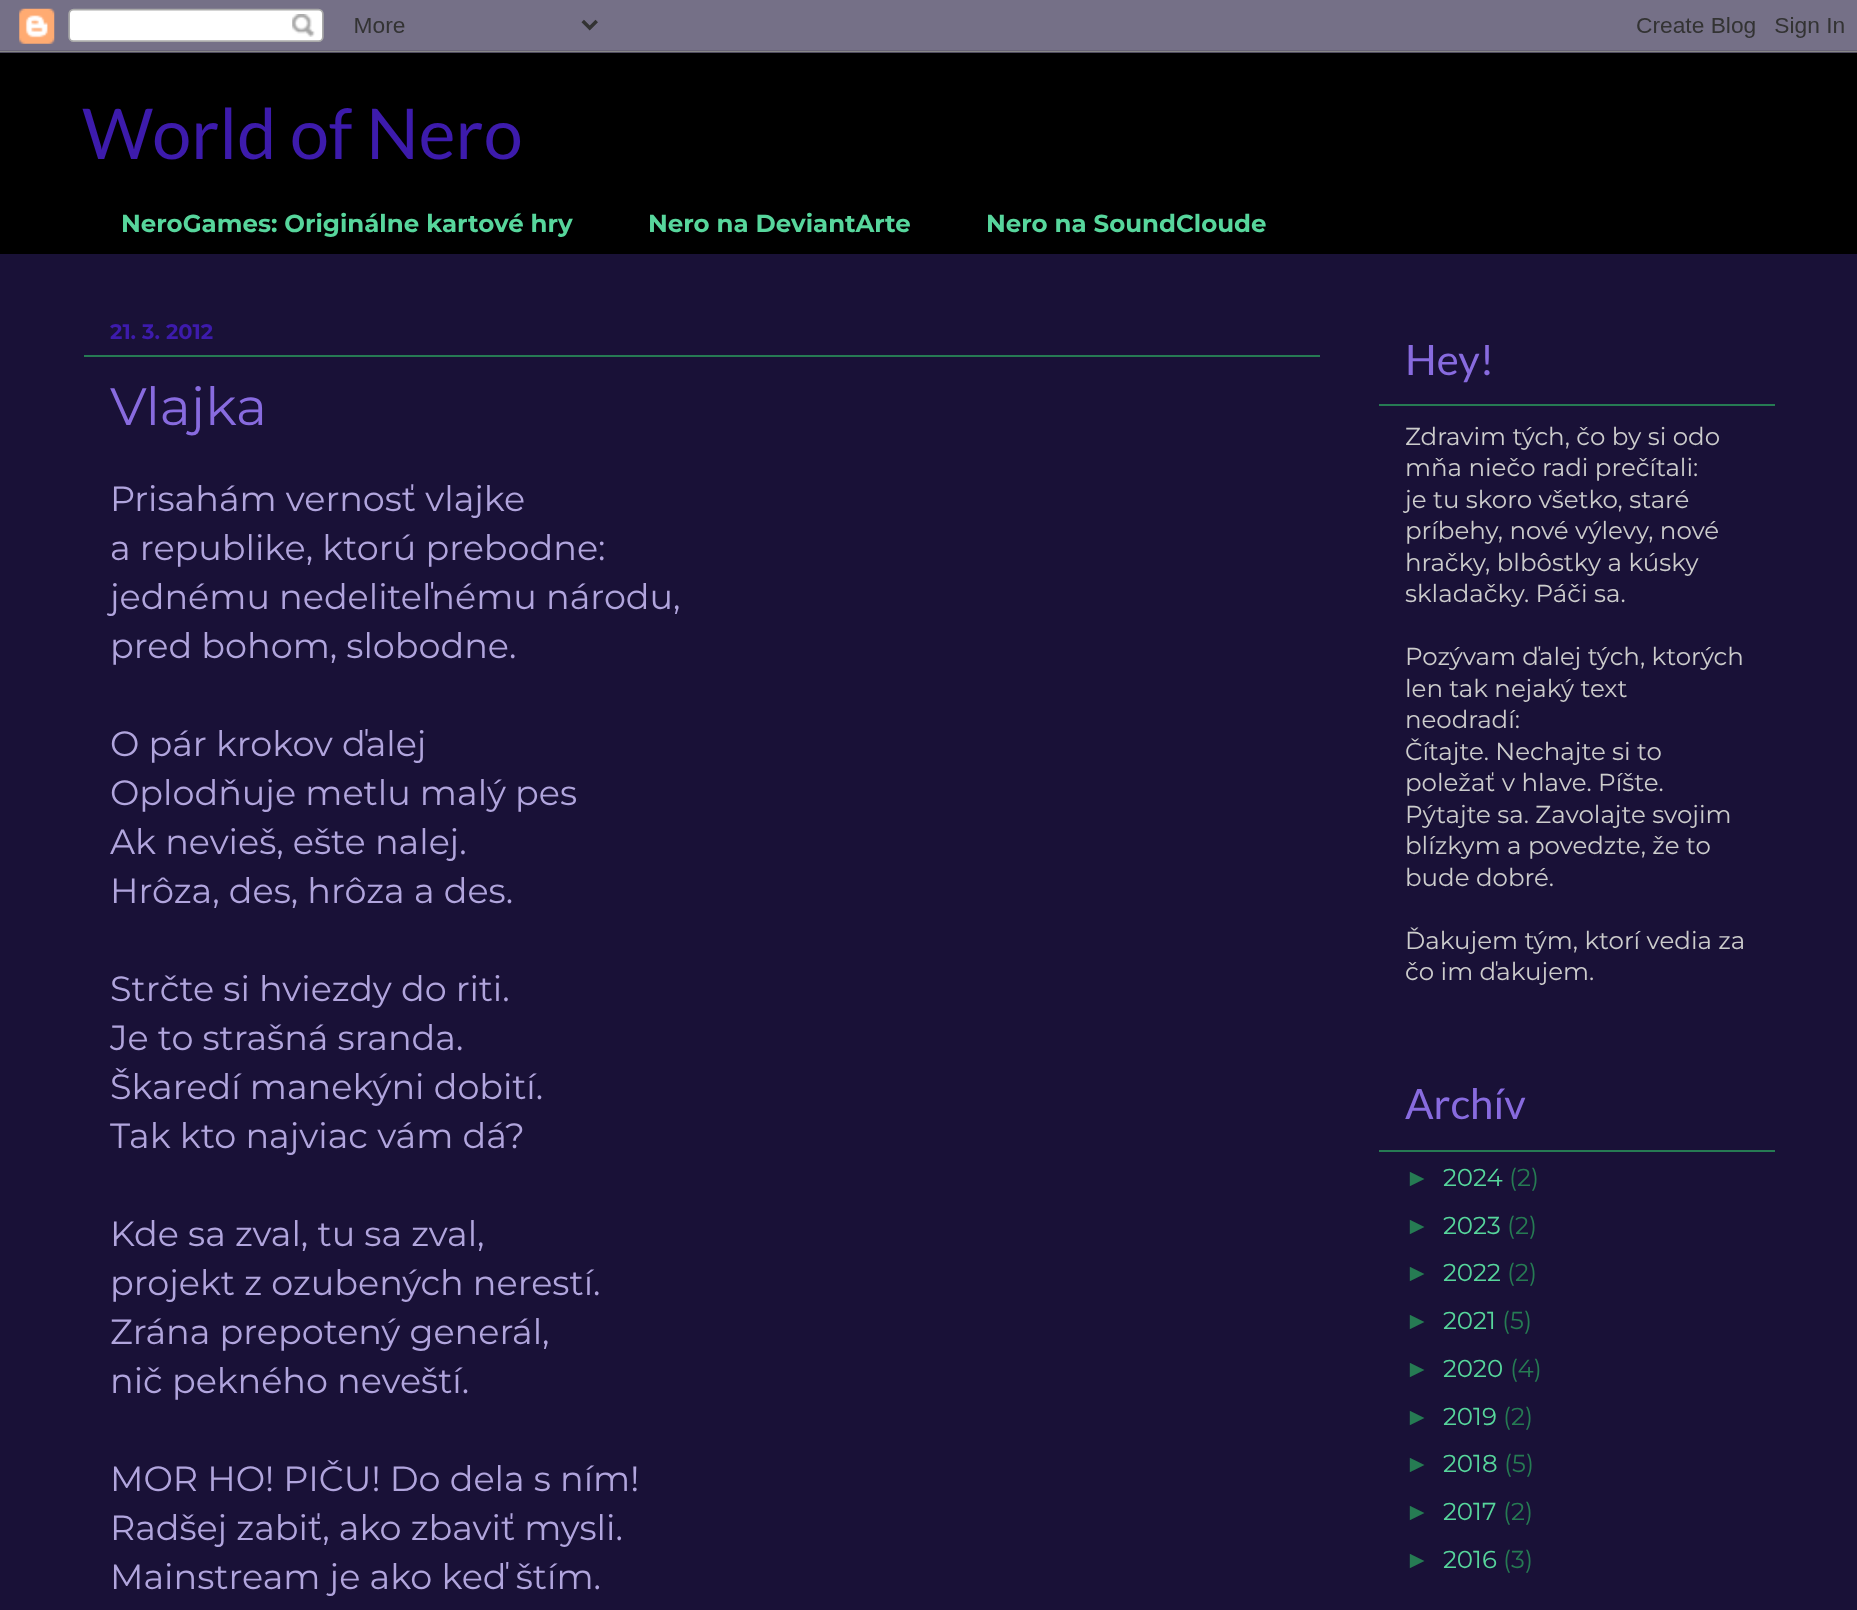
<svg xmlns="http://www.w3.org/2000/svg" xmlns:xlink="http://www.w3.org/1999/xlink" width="1857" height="1610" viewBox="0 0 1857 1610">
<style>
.cls-1{font:70px Lato;fill:#3d1bac}
.cls-2{font:bold 24.5px Montserrat;fill:#57d69c}
.cls-3{font:bold 21px Montserrat;fill:#3d1bac}
.cls-4{font:52.5px Montserrat;fill:#886bdf}
.cls-5{font:35px Montserrat;fill:#b1a5dd}
.cls-6{font:42px Lato;fill:#886bdf}
.cls-7{font:24.5px Montserrat;fill:#cccccc}
.cls-8{font:24.5px Liberation Sans;fill:#267b53}
.cls-9{font:24.5px Montserrat;fill:#57d69c}
.cls-10{font:24.5px Montserrat;fill:#267b53}
</style>
<rect width="100%" height="100%" fill="#191137"/>
<image xlink:href="image0.png" x="0" y="0" width="1857" height="53"/>
<rect fill="#000000" x="0" y="53" width="1857" height="201"/>
<rect fill="#267b53" x="84" y="355" width="1236" height="2"/>
<rect fill="#267b53" x="1379" y="404" width="396" height="2"/>
<rect fill="#267b53" x="1379" y="1150" width="396" height="2"/>
<text class="cls-1" x="82" y="159">World of Nero</text>
<text class="cls-2" x="121" y="232">NeroGames: Originálne kartové hry</text>
<text class="cls-2" x="648" y="232">Nero na DeviantArte</text>
<text class="cls-2" x="986" y="232">Nero na SoundCloude</text>
<text class="cls-3" x="110" y="339">21. 3. 2012</text>
<text class="cls-4" x="110" y="425">Vlajka</text>
<text class="cls-5"><tspan x="110" y="511">Prisahám vernosť vlajke</tspan><tspan x="110" y="560">a republike, ktorú prebodne:</tspan><tspan x="110" y="609">jednému nedeliteľnému národu,</tspan><tspan x="110" y="658">pred bohom, slobodne.</tspan></text>
<text class="cls-5"><tspan x="110" y="756">O pár krokov ďalej</tspan><tspan x="110" y="805">Oplodňuje metlu malý pes</tspan><tspan x="110" y="854">Ak nevieš, ešte nalej.</tspan><tspan x="110" y="903">Hrôza, des, hrôza a des.</tspan></text>
<text class="cls-5"><tspan x="110" y="1001">Strčte si hviezdy do riti.</tspan><tspan x="110" y="1050">Je to strašná sranda.</tspan><tspan x="110" y="1099">Škaredí manekýni dobití.</tspan><tspan x="110" y="1148">Tak kto najviac vám dá?</tspan></text>
<text class="cls-5"><tspan x="110" y="1246">Kde sa zval, tu sa zval,</tspan><tspan x="110" y="1295">projekt z ozubených nerestí.</tspan><tspan x="110" y="1344">Zrána prepotený generál,</tspan><tspan x="110" y="1393">nič pekného neveští.</tspan></text>
<text class="cls-5"><tspan x="110" y="1491">MOR HO! PIČU! Do dela s ním!</tspan><tspan x="110" y="1540">Radšej zabiť, ako zbaviť mysli.</tspan><tspan x="110" y="1589">Mainstream je ako keď štím.</tspan></text>
<text class="cls-6" x="1405" y="375">Hey!</text>
<text class="cls-7"><tspan x="1405" y="445">Zdravim tých, čo by si odo</tspan><tspan x="1405" y="476">mňa niečo radi prečítali:</tspan><tspan x="1405" y="508">je tu skoro všetko, staré</tspan><tspan x="1405" y="539">príbehy, nové výlevy, nové</tspan><tspan x="1405" y="571">hračky, blbôstky a kúsky</tspan><tspan x="1405" y="602">skladačky. Páči sa.</tspan></text>
<text class="cls-7"><tspan x="1405" y="665">Pozývam ďalej tých, ktorých</tspan><tspan x="1405" y="697">len tak nejaký text</tspan><tspan x="1405" y="728">neodradí:</tspan><tspan x="1405" y="760">Čítajte. Nechajte si to</tspan><tspan x="1405" y="791">poležať v hlave. Píšte.</tspan><tspan x="1405" y="823">Pýtajte sa. Zavolajte svojim</tspan><tspan x="1405" y="854">blízkym a povedzte, že to</tspan><tspan x="1405" y="886">bude dobré.</tspan></text>
<text class="cls-7"><tspan x="1405" y="949">Ďakujem tým, ktorí vedia za</tspan><tspan x="1405" y="980">čo im ďakujem.</tspan></text>
<text class="cls-6" x="1405" y="1119">Archív</text>
<text class="cls-8" x="1405" y="1186">►</text>
<text class="cls-9" x="1443" y="1186">2024</text>
<text class="cls-10" x="1509" y="1186">(2)</text>
<text class="cls-8" x="1405" y="1234">►</text>
<text class="cls-9" x="1443" y="1234">2023</text>
<text class="cls-10" x="1507" y="1234">(2)</text>
<text class="cls-8" x="1405" y="1281">►</text>
<text class="cls-9" x="1443" y="1281">2022</text>
<text class="cls-10" x="1507" y="1281">(2)</text>
<text class="cls-8" x="1405" y="1329">►</text>
<text class="cls-9" x="1443" y="1329">2021</text>
<text class="cls-10" x="1502" y="1329">(5)</text>
<text class="cls-8" x="1405" y="1377">►</text>
<text class="cls-9" x="1443" y="1377">2020</text>
<text class="cls-10" x="1510" y="1377">(4)</text>
<text class="cls-8" x="1405" y="1425">►</text>
<text class="cls-9" x="1443" y="1425">2019</text>
<text class="cls-10" x="1503" y="1425">(2)</text>
<text class="cls-8" x="1405" y="1472">►</text>
<text class="cls-9" x="1443" y="1472">2018</text>
<text class="cls-10" x="1504" y="1472">(5)</text>
<text class="cls-8" x="1405" y="1520">►</text>
<text class="cls-9" x="1443" y="1520">2017</text>
<text class="cls-10" x="1503" y="1520">(2)</text>
<text class="cls-8" x="1405" y="1568">►</text>
<text class="cls-9" x="1443" y="1568">2016</text>
<text class="cls-10" x="1503" y="1568">(3)</text>
</svg>
